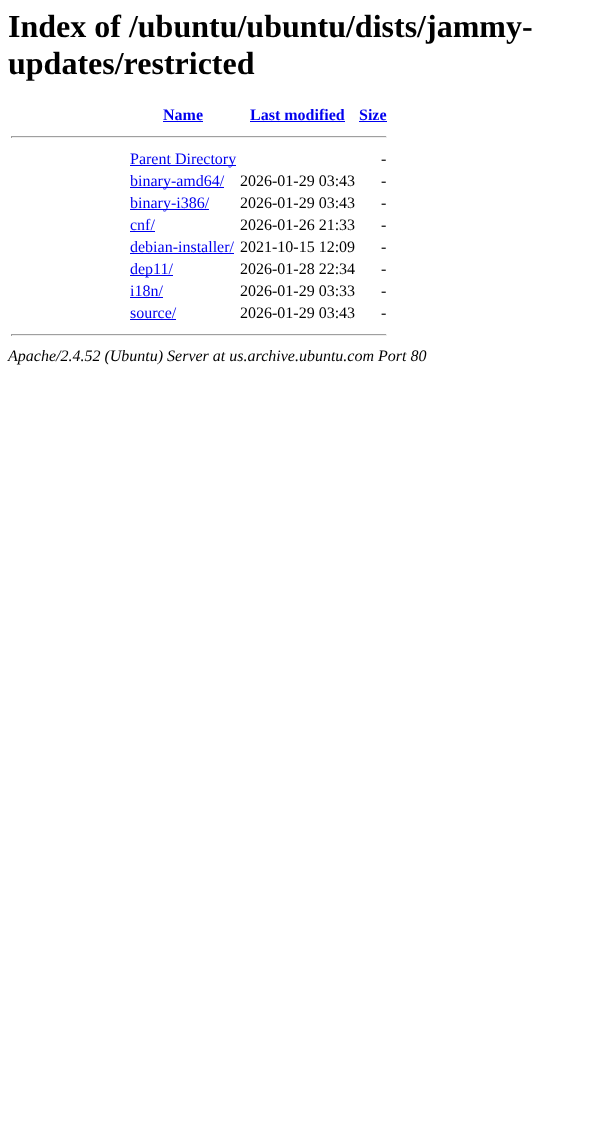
<svg xmlns="http://www.w3.org/2000/svg" xmlns:xlink="http://www.w3.org/1999/xlink" width="615" height="1147" viewBox="0 0 615 1147">
<style>
.cls-1{font:bold 32px Liberation Serif;fill:#000000}
.cls-2{font:bold 16px Liberation Serif;fill:#0000ee}
.cls-3{font:16px Liberation Serif;fill:#0000ee}
.cls-4{font:16px Liberation Serif;fill:#000000}
.cls-5{font:italic 16px Liberation Serif;fill:#000000}
</style>
<rect width="100%" height="100%" fill="#ffffff"/>
<rect fill="#0000ee" x="163" y="121" width="40" height="1"/>
<rect fill="#0000ee" x="250" y="121" width="95" height="1"/>
<rect fill="#0000ee" x="359" y="121" width="28" height="1"/>
<rect fill="#9f9f9f" x="11" y="136" width="376" height="1"/>
<rect fill="#eeeeee" x="386" y="136" width="1" height="2"/>
<rect fill="#eeeeee" x="11" y="137" width="376" height="1"/>
<rect fill="#9f9f9f" x="11" y="136" width="1" height="2"/>
<rect fill="#0000ee" x="130" y="165" width="106" height="1"/>
<rect fill="#0000ee" x="130" y="187" width="94" height="1"/>
<rect fill="#0000ee" x="130" y="209" width="79" height="1"/>
<rect fill="#0000ee" x="130" y="231" width="25" height="1"/>
<rect fill="#0000ee" x="130" y="253" width="104" height="1"/>
<rect fill="#0000ee" x="130" y="275" width="43" height="1"/>
<rect fill="#0000ee" x="130" y="297" width="33" height="1"/>
<rect fill="#0000ee" x="130" y="319" width="46" height="1"/>
<rect fill="#9f9f9f" x="11" y="334" width="376" height="1"/>
<rect fill="#eeeeee" x="386" y="334" width="1" height="2"/>
<rect fill="#eeeeee" x="11" y="335" width="376" height="1"/>
<rect fill="#9f9f9f" x="11" y="334" width="1" height="2"/>
<text class="cls-1"><tspan x="8" y="37">Index of /ubuntu/ubuntu/dists/jammy-</tspan><tspan x="8" y="74">updates/restricted</tspan></text>
<text class="cls-2" x="163" y="120">Name</text>
<text class="cls-2" x="250" y="120">Last modified</text>
<text class="cls-2" x="359" y="120">Size</text>
<text class="cls-3" x="130" y="164">Parent Directory</text>
<text class="cls-4" x="381" y="164">-</text>
<text class="cls-3" x="130" y="186">binary-amd64/</text>
<text class="cls-4" x="240" y="186">2026-01-29 03:43</text>
<text class="cls-4" x="381" y="186">-</text>
<text class="cls-3" x="130" y="208">binary-i386/</text>
<text class="cls-4" x="240" y="208">2026-01-29 03:43</text>
<text class="cls-4" x="381" y="208">-</text>
<text class="cls-3" x="130" y="230">cnf/</text>
<text class="cls-4" x="240" y="230">2026-01-26 21:33</text>
<text class="cls-4" x="381" y="230">-</text>
<text class="cls-3" x="130" y="252">debian-installer/</text>
<text class="cls-4" x="240" y="252">2021-10-15 12:09</text>
<text class="cls-4" x="381" y="252">-</text>
<text class="cls-3" x="130" y="274">dep11/</text>
<text class="cls-4" x="240" y="274">2026-01-28 22:34</text>
<text class="cls-4" x="381" y="274">-</text>
<text class="cls-3" x="130" y="296">i18n/</text>
<text class="cls-4" x="240" y="296">2026-01-29 03:33</text>
<text class="cls-4" x="381" y="296">-</text>
<text class="cls-3" x="130" y="318">source/</text>
<text class="cls-4" x="240" y="318">2026-01-29 03:43</text>
<text class="cls-4" x="381" y="318">-</text>
<text class="cls-5" x="8" y="361">Apache/2.4.52 (Ubuntu) Server at us.archive.ubuntu.com Port 80</text>
</svg>
